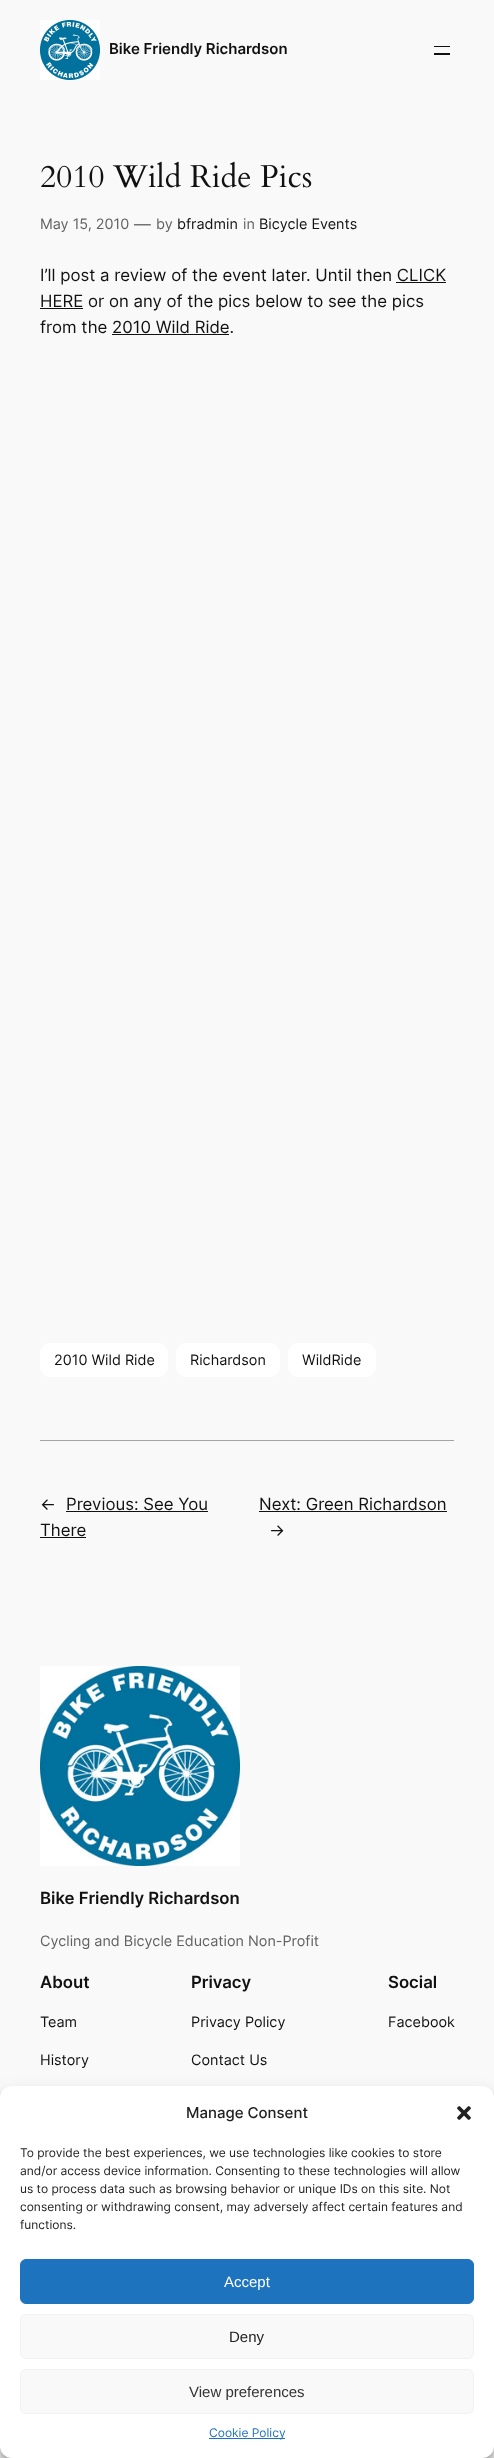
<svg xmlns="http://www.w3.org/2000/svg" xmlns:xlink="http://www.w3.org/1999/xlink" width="494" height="2458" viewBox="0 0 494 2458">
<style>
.cls-1{font:600 15px Inter;fill:#111111}
.cls-2{font:14.4px Inter;fill:#636363}
.cls-3{font:16.8px Inter;fill:#636363}
.cls-4{font:14.4px Inter;fill:#111111}
.cls-5{font:16.8px Inter;fill:#111111}
.cls-6{font:600 16.8px Inter;fill:#111111}
.cls-7{font:500 15px Inter;fill:#222222}
.cls-8{font:12px Inter;fill:#222222}
.cls-9{font:15px Liberation Sans;fill:#ffffff}
.cls-10{font:15px Liberation Sans;fill:#222222}
.cls-11{font:15px Liberation Sans;fill:#333333}
.cls-12{font:12px Inter;fill:#1e73be}
</style>
<rect width="100%" height="100%" fill="#f9f9f9"/>
<image xlink:href="image0.png" x="40" y="20" width="60" height="60"/>
<rect fill="#111111" x="434" y="46" width="16" height="1"/>
<rect fill="#111111" x="434" y="53" width="16" height="2"/>
<image xlink:href="image1.png" x="41" y="161" width="271" height="27"/>
<rect fill="#111111" x="396" y="282" width="50" height="1"/>
<rect fill="#111111" x="40" y="308" width="43" height="1"/>
<rect fill="#111111" x="112" y="334" width="117" height="1"/>
<rect fill="#ffffff" x="40" y="1343" width="128" height="34" rx="10"/>
<rect fill="#ffffff" x="176" y="1343" width="104" height="34" rx="10"/>
<rect fill="#ffffff" x="288" y="1343" width="88" height="34" rx="10"/>
<rect fill="#a4a4a4" x="40" y="1440" width="414" height="1"/>
<rect fill="#111111" x="66" y="1511" width="142" height="1"/>
<rect fill="#111111" x="40" y="1537" width="46" height="1"/>
<rect fill="#111111" x="259" y="1511" width="188" height="1"/>
<image xlink:href="image2.png" x="40" y="1666" width="200" height="200"/>
<rect fill="#000000" fill-opacity="0.23" filter="blur(3px)" x="0" y="2092" width="494" height="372" rx="12"/>
<rect fill="#000000" fill-opacity="0.19" filter="blur(10px)" x="0" y="2096" width="494" height="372" rx="12"/>
<rect fill="#ffffff" x="0" y="2086" width="494" height="372" rx="12"/>
<image xlink:href="image3.png" x="457" y="2106" width="14" height="14"/>
<rect fill="#1e73be" stroke="#1e73be" x="20.5" y="2259.5" width="453" height="44" rx="5.5"/>
<rect fill="#f9f9f9" stroke="#f2f2f2" x="20.5" y="2314.5" width="453" height="44" rx="5.5"/>
<rect fill="#f9f9f9" stroke="#f2f2f2" x="20.5" y="2369.5" width="453" height="44" rx="5.5"/>
<rect fill="#1e73be" x="209" y="2438" width="76" height="1"/>
<text class="cls-1" x="109" y="54">Bike Friendly Richardson</text>
<text class="cls-2" x="40" y="229">May 15, 2010</text>
<text class="cls-3" x="134" y="230">—</text>
<text class="cls-2" x="156" y="229">by</text>
<text class="cls-4" x="177" y="229">bfradmin</text>
<text class="cls-2" x="243" y="229">in</text>
<text class="cls-4" x="259" y="229">Bicycle Events</text>
<text class="cls-5"><tspan x="40" y="281">I’ll post a review of the event later. Until then CLICK</tspan><tspan x="40" y="307">HERE or on any of the pics below to see the pics</tspan><tspan x="40" y="333">from the 2010 Wild Ride.</tspan></text>
<text class="cls-4" x="54" y="1365">2010 Wild Ride</text>
<text class="cls-4" x="190" y="1365">Richardson</text>
<text class="cls-4" x="302" y="1365">WildRide</text>
<text class="cls-5" x="40" y="1510">←</text>
<text class="cls-5" x="66" y="1510">Previous: See You</text>
<text class="cls-5" x="40" y="1536">There</text>
<text class="cls-5" x="259" y="1510">Next: Green Richardson</text>
<text class="cls-5" x="269" y="1536">→</text>
<text class="cls-6" x="40" y="1904">Bike Friendly Richardson</text>
<text class="cls-2" x="40" y="1946">Cycling and Bicycle Education Non-Profit</text>
<text class="cls-6" x="40" y="1988">About</text>
<text class="cls-4" x="40" y="2027">Team</text>
<text class="cls-4" x="40" y="2065">History</text>
<text class="cls-6" x="191" y="1988">Privacy</text>
<text class="cls-4" x="191" y="2027">Privacy Policy</text>
<text class="cls-4" x="191" y="2065">Contact Us</text>
<text class="cls-6" x="388" y="1988">Social</text>
<text class="cls-4" x="388" y="2027">Facebook</text>
<text class="cls-7" x="186" y="2118">Manage Consent</text>
<text class="cls-8"><tspan x="20" y="2157">To provide the best experiences, we use technologies like cookies to store</tspan><tspan x="20" y="2175">and/or access device information. Consenting to these technologies will allow</tspan><tspan x="20" y="2193">us to process data such as browsing behavior or unique IDs on this site. Not</tspan><tspan x="20" y="2211">consenting or withdrawing consent, may adversely affect certain features and</tspan><tspan x="20" y="2229">functions.</tspan></text>
<text class="cls-9" x="224" y="2287">Accept</text>
<text class="cls-10" x="229" y="2342">Deny</text>
<text class="cls-11" x="189" y="2397">View preferences</text>
<text class="cls-12" x="209" y="2437">Cookie Policy</text>
</svg>
